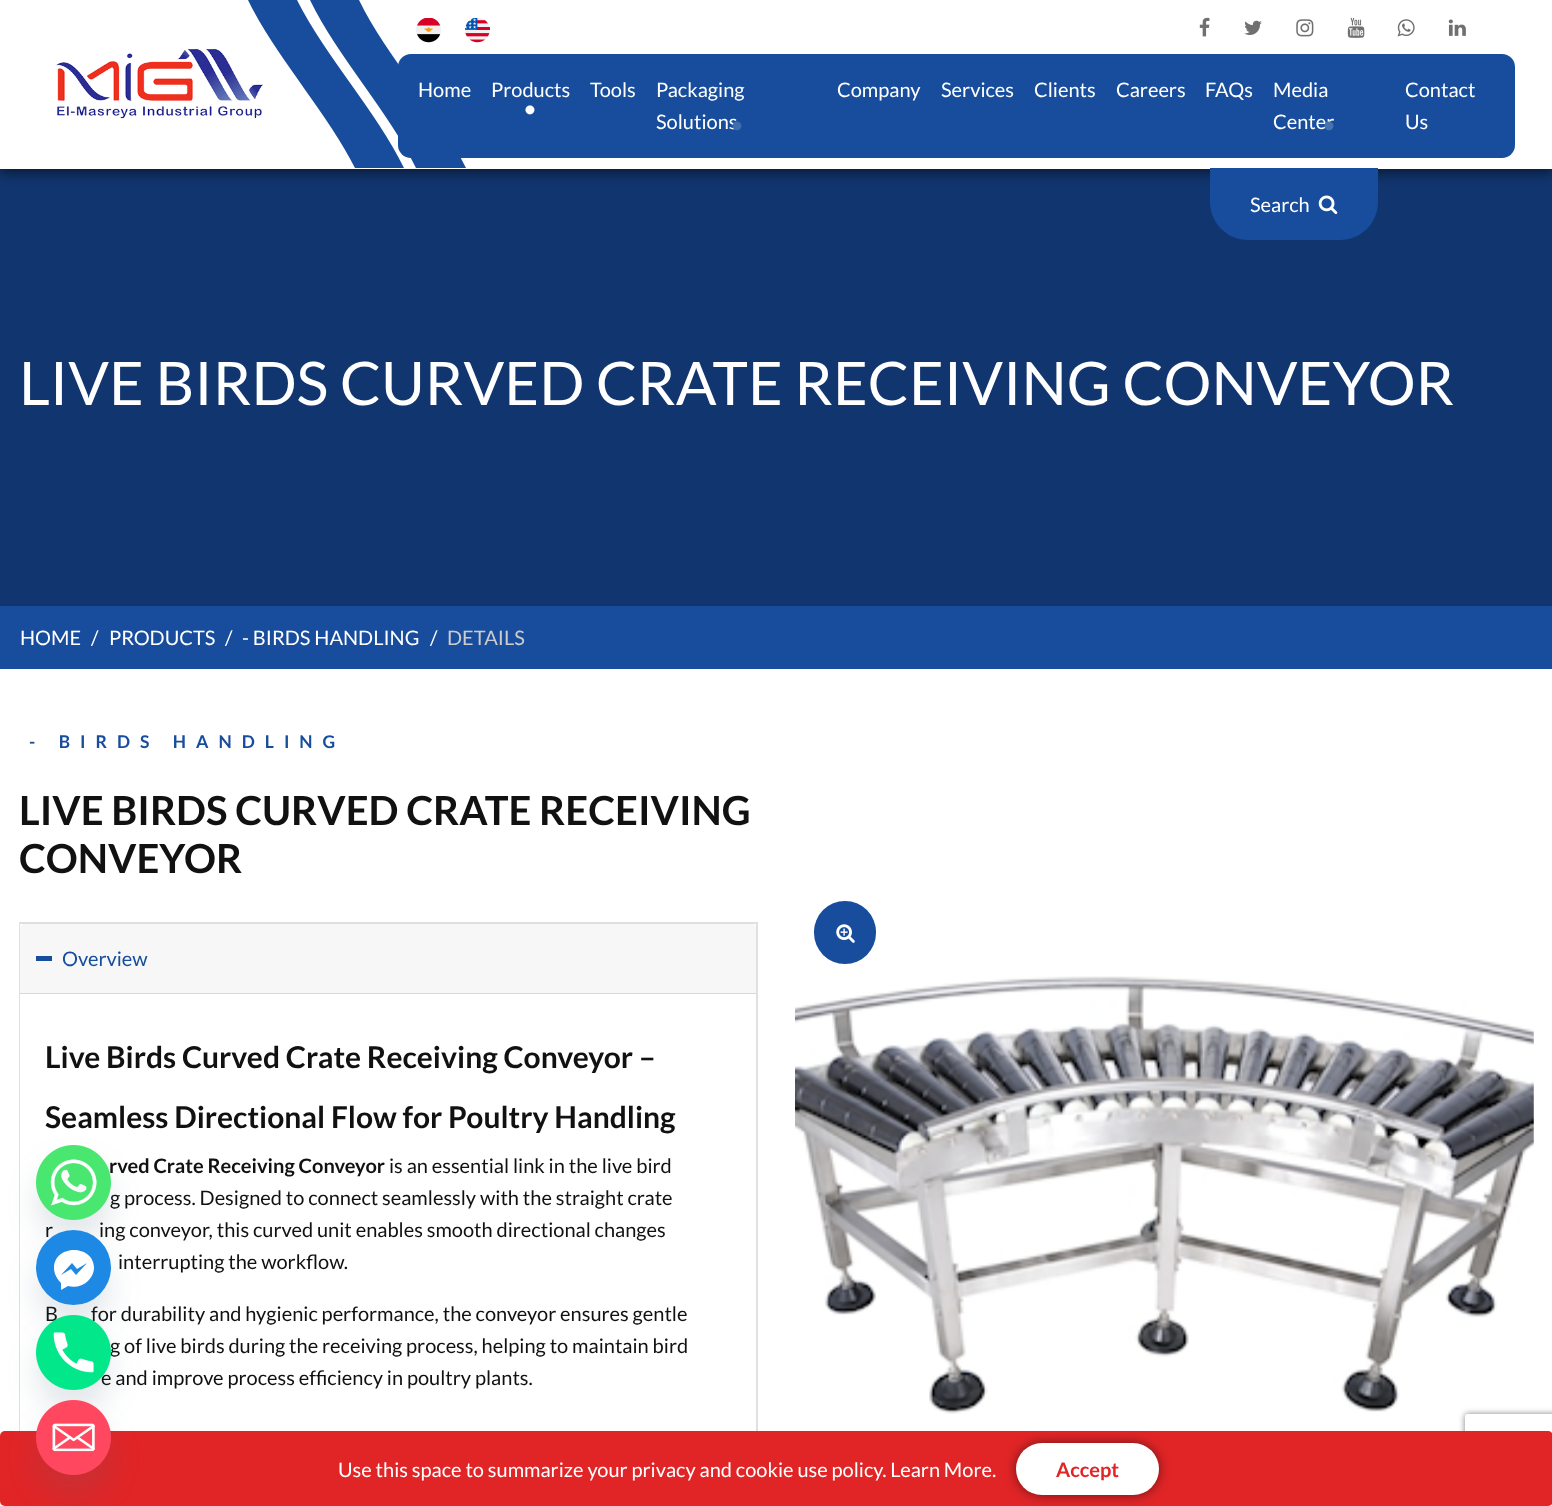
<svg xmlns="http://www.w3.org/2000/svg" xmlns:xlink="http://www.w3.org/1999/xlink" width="1552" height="1506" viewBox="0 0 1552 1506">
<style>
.cls-1{font:20px Lato;fill:#ffffff}
.cls-2{font:24px Lato;fill:#ffffff}
.cls-3{font:24px Lato;fill:#416dae}
.cls-4{font:24px Lato;fill:#4873b1}
.cls-5{font:60px Lato;fill:#ffffff}
.cls-6{font:20px Lato;fill:#cccccc}
.cls-7{font:bold 17.5px Lato;letter-spacing:10px;fill:#174d9c}
.cls-8{font:bold 40px Lato;fill:#111111}
.cls-9{font:20px Lato;fill:#174d9c}
.cls-10{font:bold 30px Lato;fill:#111111}
.cls-11{font:bold 20px Lato;fill:#111111}
.cls-12{font:20px Lato;fill:#111111}
.cls-13{font:bold 20px Lato;fill:#e12527}
</style>
<defs>
<clipPath id="clip1"><path d="M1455 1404H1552V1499H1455ZM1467.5 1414H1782.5C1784 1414 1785 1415 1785 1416.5V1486.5C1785 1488 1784 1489 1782.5 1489H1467.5C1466 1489 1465 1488 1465 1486.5V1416.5C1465 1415 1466 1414 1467.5 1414Z" clip-rule="evenodd"/></clipPath>
</defs>
<rect width="100%" height="100%" fill="#174d9c"/>
<rect fill="#11356e" x="0" y="169" width="1552" height="437"/>
<rect fill="#000000" fill-opacity="0.5" filter="blur(6px)" x="0" y="4" width="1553" height="169"/>
<rect fill="#ffffff" x="0" y="0" width="1552" height="169"/>
<image xlink:href="image0.png" x="56" y="49" width="207" height="70"/>
<rect fill="#174d9c" x="398" y="54" width="1117" height="104" rx="13"/>
<path fill="#174d9c" d="M416 168C389 112 337 56 310 0H359C386 56 439 112 466 168ZM355 168C327 112 275 56 248 0H297C325 56 377 112 404 168Z"/>
<image xlink:href="image1.png" x="416" y="18" width="25" height="25"/>
<image xlink:href="image2.png" x="465" y="18" width="25" height="25"/>
<image xlink:href="image3.png" x="1199" y="17" width="11" height="20"/>
<image xlink:href="image4.png" x="1244" y="20" width="18" height="15"/>
<image xlink:href="image5.png" x="1296" y="19" width="18" height="18"/>
<image xlink:href="image6.png" x="1347" y="17" width="18" height="21"/>
<image xlink:href="image7.png" x="1397" y="19" width="18" height="18"/>
<image xlink:href="image8.png" x="1448" y="19" width="18" height="17"/>
<path fill="#174d9c" d="M1210 168H1378V202C1378 223 1361 240 1340 240H1248C1227 240 1210 223 1210 202Z"/>
<image xlink:href="image9.png" x="1318" y="195" width="20" height="20"/>
<rect fill="#ffffff" x="0" y="669" width="1552" height="837"/>
<path fill="#dfdfdf" d="M19 922H758L756 924H20Z"/>
<path fill="#000000" fill-opacity="0.12" d="M758 922V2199H756V924Z"/>
<path fill="#000000" fill-opacity="0.12" d="M19 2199V922L20 924V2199Z"/>
<path fill="#f7f7f7" d="M24 924H752C754 924 756 926 756 928V994H20V928C20 926 22 924 24 924Z"/>
<rect fill="#d8d8d8" x="20" y="993" width="736" height="1"/>
<rect fill="#174d9c" x="36" y="956" width="16" height="5"/>
<rect fill="#174d9c" x="814" y="901" width="62" height="63" rx="31"/>
<image xlink:href="image10.png" x="836" y="924" width="19" height="19"/>
<image xlink:href="image11.png" x="795" y="976" width="739" height="438"/>
<rect fill="#49687e" fill-opacity="0.16" filter="blur(15px)" x="36" y="1165" width="75" height="75" rx="37.5"/>
<rect fill="#000000" fill-opacity="0.07" filter="blur(2.5px)" x="0" y="1434" width="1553" height="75" rx="5"/>
<g clip-path="url(#clip1)">
<rect fill="#808080" filter="blur(3px)" x="1465" y="1414" width="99" height="75" rx="2.5"/>
</g>
<rect fill="#e12527" x="0" y="1431" width="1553" height="75" rx="5"/>
<rect fill="#000000" fill-opacity="0.5" filter="blur(6px)" x="1016" y="1443" width="143" height="52" rx="26"/>
<rect fill="#ffffff" x="1016" y="1443" width="143" height="52" rx="26"/>
<text class="cls-1" x="418" y="97">Home</text>
<text class="cls-1" x="491" y="97">Products</text>
<text class="cls-2" x="523" y="117">•</text>
<text class="cls-1" x="590" y="97">Tools</text>
<text class="cls-1"><tspan x="656" y="97">Packaging</tspan><tspan x="656" y="129">Solutions</tspan></text>
<text class="cls-3" x="730" y="133">•</text>
<text class="cls-1" x="837" y="97">Company</text>
<text class="cls-1" x="941" y="97">Services</text>
<text class="cls-1" x="1034" y="97">Clients</text>
<text class="cls-1" x="1116" y="97">Careers</text>
<text class="cls-1" x="1205" y="97">FAQs</text>
<text class="cls-1"><tspan x="1273" y="97">Media</tspan><tspan x="1273" y="129">Center</tspan></text>
<text class="cls-4" x="1322" y="133">•</text>
<text class="cls-1"><tspan x="1405" y="97">Contact</tspan><tspan x="1405" y="129">Us</tspan></text>
<text class="cls-1" x="1250" y="212">Search</text>
<text class="cls-5" x="19" y="405">LIVE BIRDS CURVED CRATE RECEIVING CONVEYOR</text>
<text class="cls-1" x="20" y="645">HOME</text>
<text class="cls-1" x="91" y="645">/</text>
<text class="cls-1" x="109" y="645">PRODUCTS</text>
<text class="cls-1" x="225" y="645">/</text>
<text class="cls-1" x="242" y="645">- BIRDS HANDLING</text>
<text class="cls-1" x="430" y="645">/</text>
<text class="cls-6" x="447" y="645">DETAILS</text>
<text class="cls-7" x="29" y="748">- BIRDS HANDLING</text>
<text class="cls-8"><tspan x="19" y="825">LIVE BIRDS CURVED CRATE RECEIVING</tspan><tspan x="19" y="873">CONVEYOR</tspan></text>
<text class="cls-9" x="62" y="966">Overview</text>
<text class="cls-10" x="45" y="1068">Live Birds Curved Crate Receiving Conveyor –</text>
<text class="cls-10" x="45" y="1128">Seamless Directional Flow for Poultry Handling</text>
<text class="cls-11" x="109" y="1173">rved Crate Receiving Conveyor</text>
<text class="cls-12" x="389" y="1173">is an essential link in the live bird</text>
<text class="cls-12" x="110" y="1205">g process. Designed to connect seamlessly with the straight crate</text>
<text class="cls-12" x="45" y="1237">r</text>
<text class="cls-12" x="99" y="1237">ing conveyor, this curved unit enables smooth directional changes</text>
<text class="cls-12" x="118" y="1269">interrupting the workflow.</text>
<text class="cls-12" x="45" y="1321">B</text>
<text class="cls-12" x="91" y="1321">for durability and hygienic performance, the conveyor ensures gentle</text>
<text class="cls-12" x="110" y="1353">g of live birds during the receiving process, helping to maintain bird</text>
<text class="cls-12" x="101" y="1385">e and improve process efficiency in poultry plants.</text>
<image xlink:href="image12.png" x="36" y="1145" width="75" height="75"/>
<rect fill="#49687e" fill-opacity="0.16" filter="blur(15px)" x="36" y="1250" width="75" height="75" rx="37.5"/>
<circle fill="#1e88e5" cx="73.5" cy="1267.5" r="37.5"/>
<path fill="#ffffff" fill-rule="evenodd" d="M54 1268C54 1244 94 1244 94 1268C94 1273 91 1278 88 1281C83 1286 75 1288 68 1286L61 1290V1283C57 1279 54 1274 54 1268ZM71 1269L76 1275L87 1263L77 1269L72 1263L61 1275Z"/>
<rect fill="#49687e" fill-opacity="0.16" filter="blur(15px)" x="36" y="1335" width="75" height="75" rx="37.5"/>
<image xlink:href="image13.png" x="36" y="1315" width="75" height="75"/>
<rect fill="#49687e" fill-opacity="0.16" filter="blur(15px)" x="36" y="1420" width="75" height="75" rx="37.5"/>
<image xlink:href="image14.png" x="36" y="1400" width="75" height="75"/>
<text class="cls-1" x="338" y="1477">Use this space to summarize your privacy and cookie use policy. Learn More.</text>
<text class="cls-13" x="1056" y="1477">Accept</text>
</svg>
